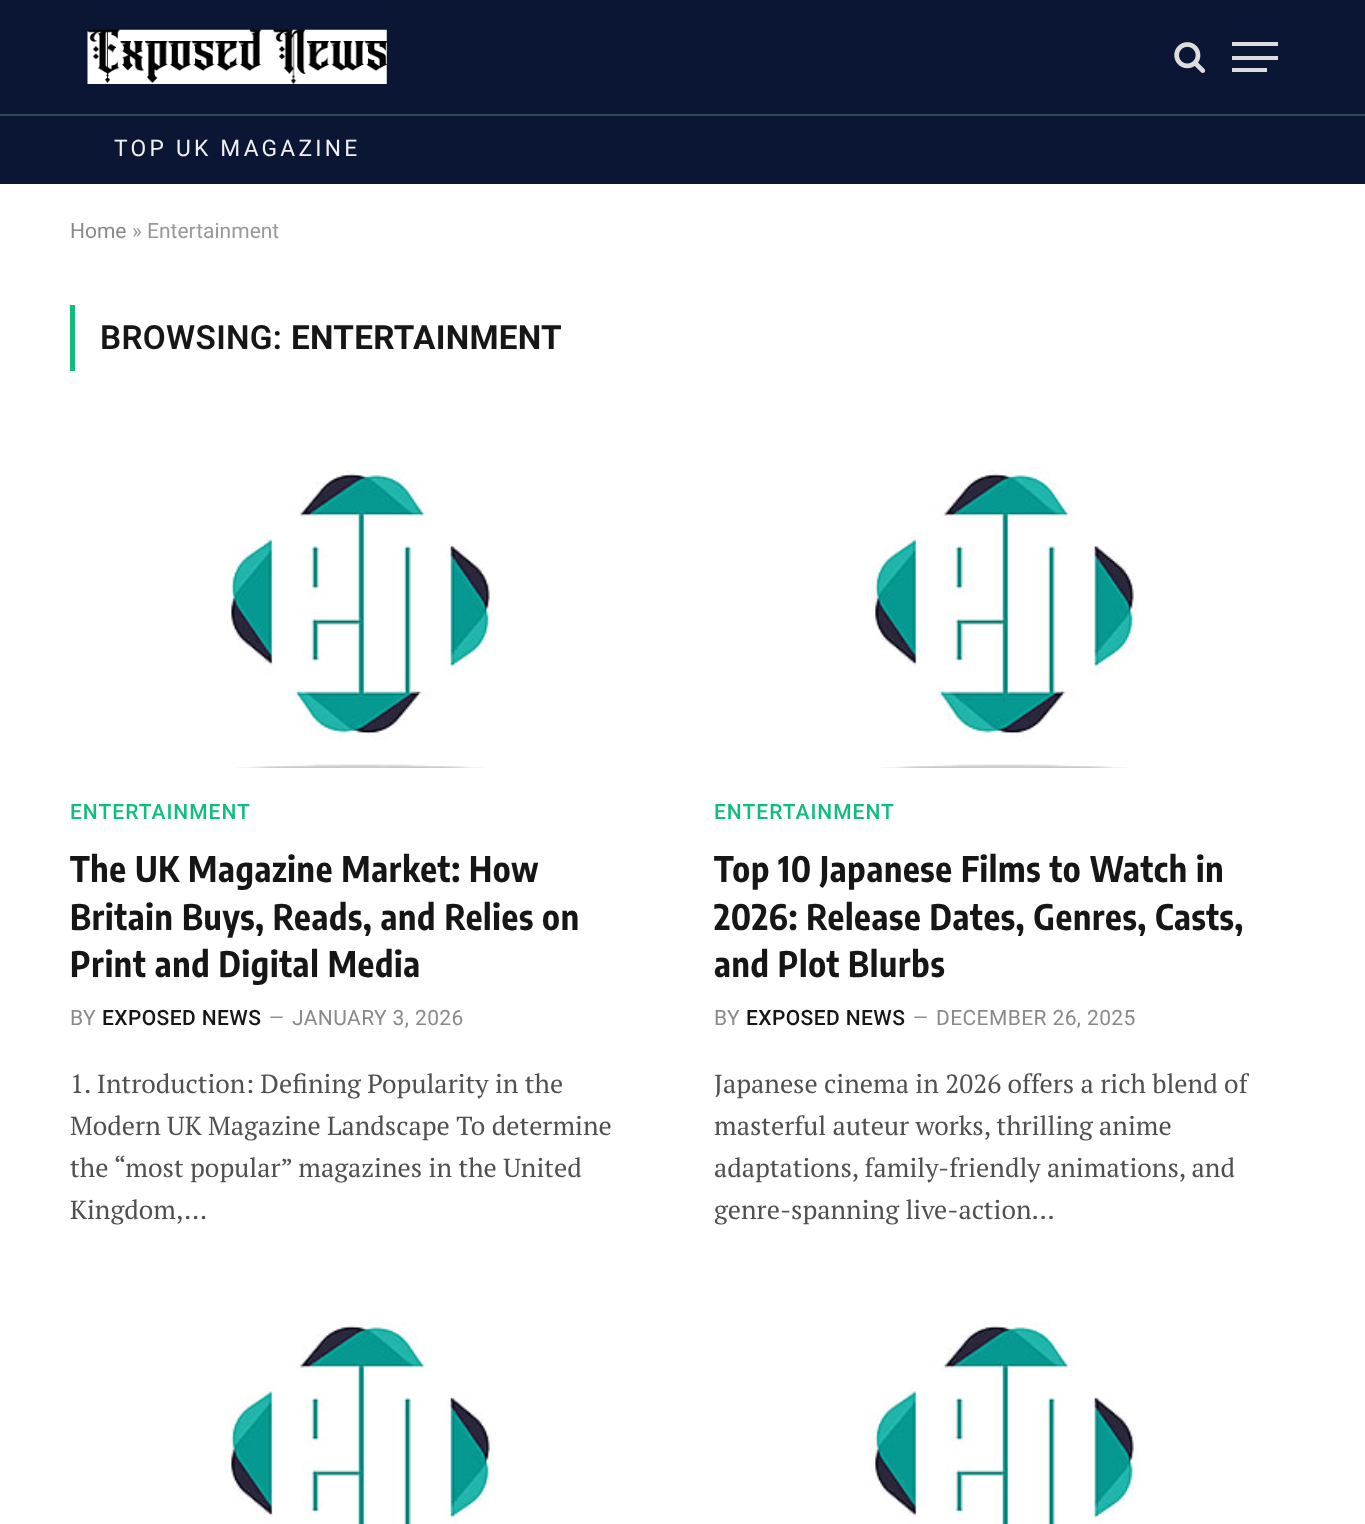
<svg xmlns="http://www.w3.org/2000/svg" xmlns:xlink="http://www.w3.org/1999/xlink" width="1365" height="1524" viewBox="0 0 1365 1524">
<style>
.cls-1{font:22.75px Roboto;letter-spacing:3.25px;fill:#f0f0f0}
.cls-2{font:21px Roboto;fill:#8a8a8a}
.cls-3{font:21px Roboto;fill:#999999}
.cls-4{font:600 33.25px Roboto;letter-spacing:0.3px;fill:#161616}
.cls-5{font:bold 33.25px Roboto;letter-spacing:0.3px;fill:#161616}
.cls-6{font:500 21px Roboto;letter-spacing:1px;fill:#10bd7f}
.cls-7{font:bold 35px Encode Sans Condensed;letter-spacing:0.7px;fill:#161616}
.cls-8{font:21px Roboto;letter-spacing:0.4px;fill:#8a8a8a}
.cls-9{font:500 21px Roboto;letter-spacing:0.4px;fill:#161616}
.cls-10{font:19px Roboto;fill:#8a8a8a}
.cls-11{font:26.25px PT Serif;fill:#505050}
</style>
<rect width="100%" height="100%" fill="#ffffff"/>
<rect fill="#0a1633" x="0" y="0" width="1365" height="114"/>
<image xlink:href="image0.png" x="87" y="29" width="300" height="55"/>
<image xlink:href="image1.png" x="1174" y="42" width="32" height="31"/>
<rect fill="#dadce0" x="1232" y="68" width="35" height="4"/>
<rect fill="#dadce0" x="1232" y="42" width="46" height="4"/>
<rect fill="#dadce0" x="1232" y="56" width="46" height="4"/>
<rect fill="#0a1633" x="0" y="116" width="1365" height="68"/>
<rect fill="#304951" x="0" y="114" width="1365" height="2"/>
<rect fill="#10bd7f" x="70" y="305" width="5" height="66"/>
<image xlink:href="image2.png" x="227" y="469" width="267" height="299"/>
<image xlink:href="image2.png" x="871" y="469" width="267" height="299"/>
<image xlink:href="image3.png" x="225" y="1322" width="269" height="202"/>
<image xlink:href="image3.png" x="869" y="1322" width="269" height="202"/>
<text class="cls-1" x="114" y="156">TOP UK MAGAZINE</text>
<text class="cls-2" x="70" y="238">Home</text>
<text class="cls-3" x="132" y="238">» Entertainment</text>
<text class="cls-4" x="100" y="349">BROWSING:</text>
<text class="cls-5" x="291" y="349">ENTERTAINMENT</text>
<text class="cls-6" x="70" y="819">ENTERTAINMENT</text>
<text class="cls-7"><tspan x="70" y="882">The UK Magazine Market: How</tspan><tspan x="70" y="930">Britain Buys, Reads, and Relies on</tspan><tspan x="70" y="977">Print and Digital Media</tspan></text>
<text class="cls-8" x="70" y="1025">BY</text>
<text class="cls-9" x="102" y="1025">EXPOSED NEWS</text>
<text class="cls-10" x="269" y="1024">—</text>
<text class="cls-8" x="292" y="1025">JANUARY 3, 2026</text>
<text class="cls-11"><tspan x="70" y="1093">1. Introduction: Defining Popularity in the</tspan><tspan x="70" y="1135">Modern UK Magazine Landscape To determine</tspan><tspan x="70" y="1177">the “most popular” magazines in the United</tspan><tspan x="70" y="1219">Kingdom,…</tspan></text>
<text class="cls-6" x="714" y="819">ENTERTAINMENT</text>
<text class="cls-7"><tspan x="714" y="882">Top 10 Japanese Films to Watch in</tspan><tspan x="714" y="930">2026: Release Dates, Genres, Casts,</tspan><tspan x="714" y="977">and Plot Blurbs</tspan></text>
<text class="cls-8" x="714" y="1025">BY</text>
<text class="cls-9" x="746" y="1025">EXPOSED NEWS</text>
<text class="cls-10" x="913" y="1024">—</text>
<text class="cls-8" x="936" y="1025">DECEMBER 26, 2025</text>
<text class="cls-11"><tspan x="714" y="1093">Japanese cinema in 2026 offers a rich blend of</tspan><tspan x="714" y="1135">masterful auteur works, thrilling anime</tspan><tspan x="714" y="1177">adaptations, family-friendly animations, and</tspan><tspan x="714" y="1219">genre-spanning live-action…</tspan></text>
</svg>
